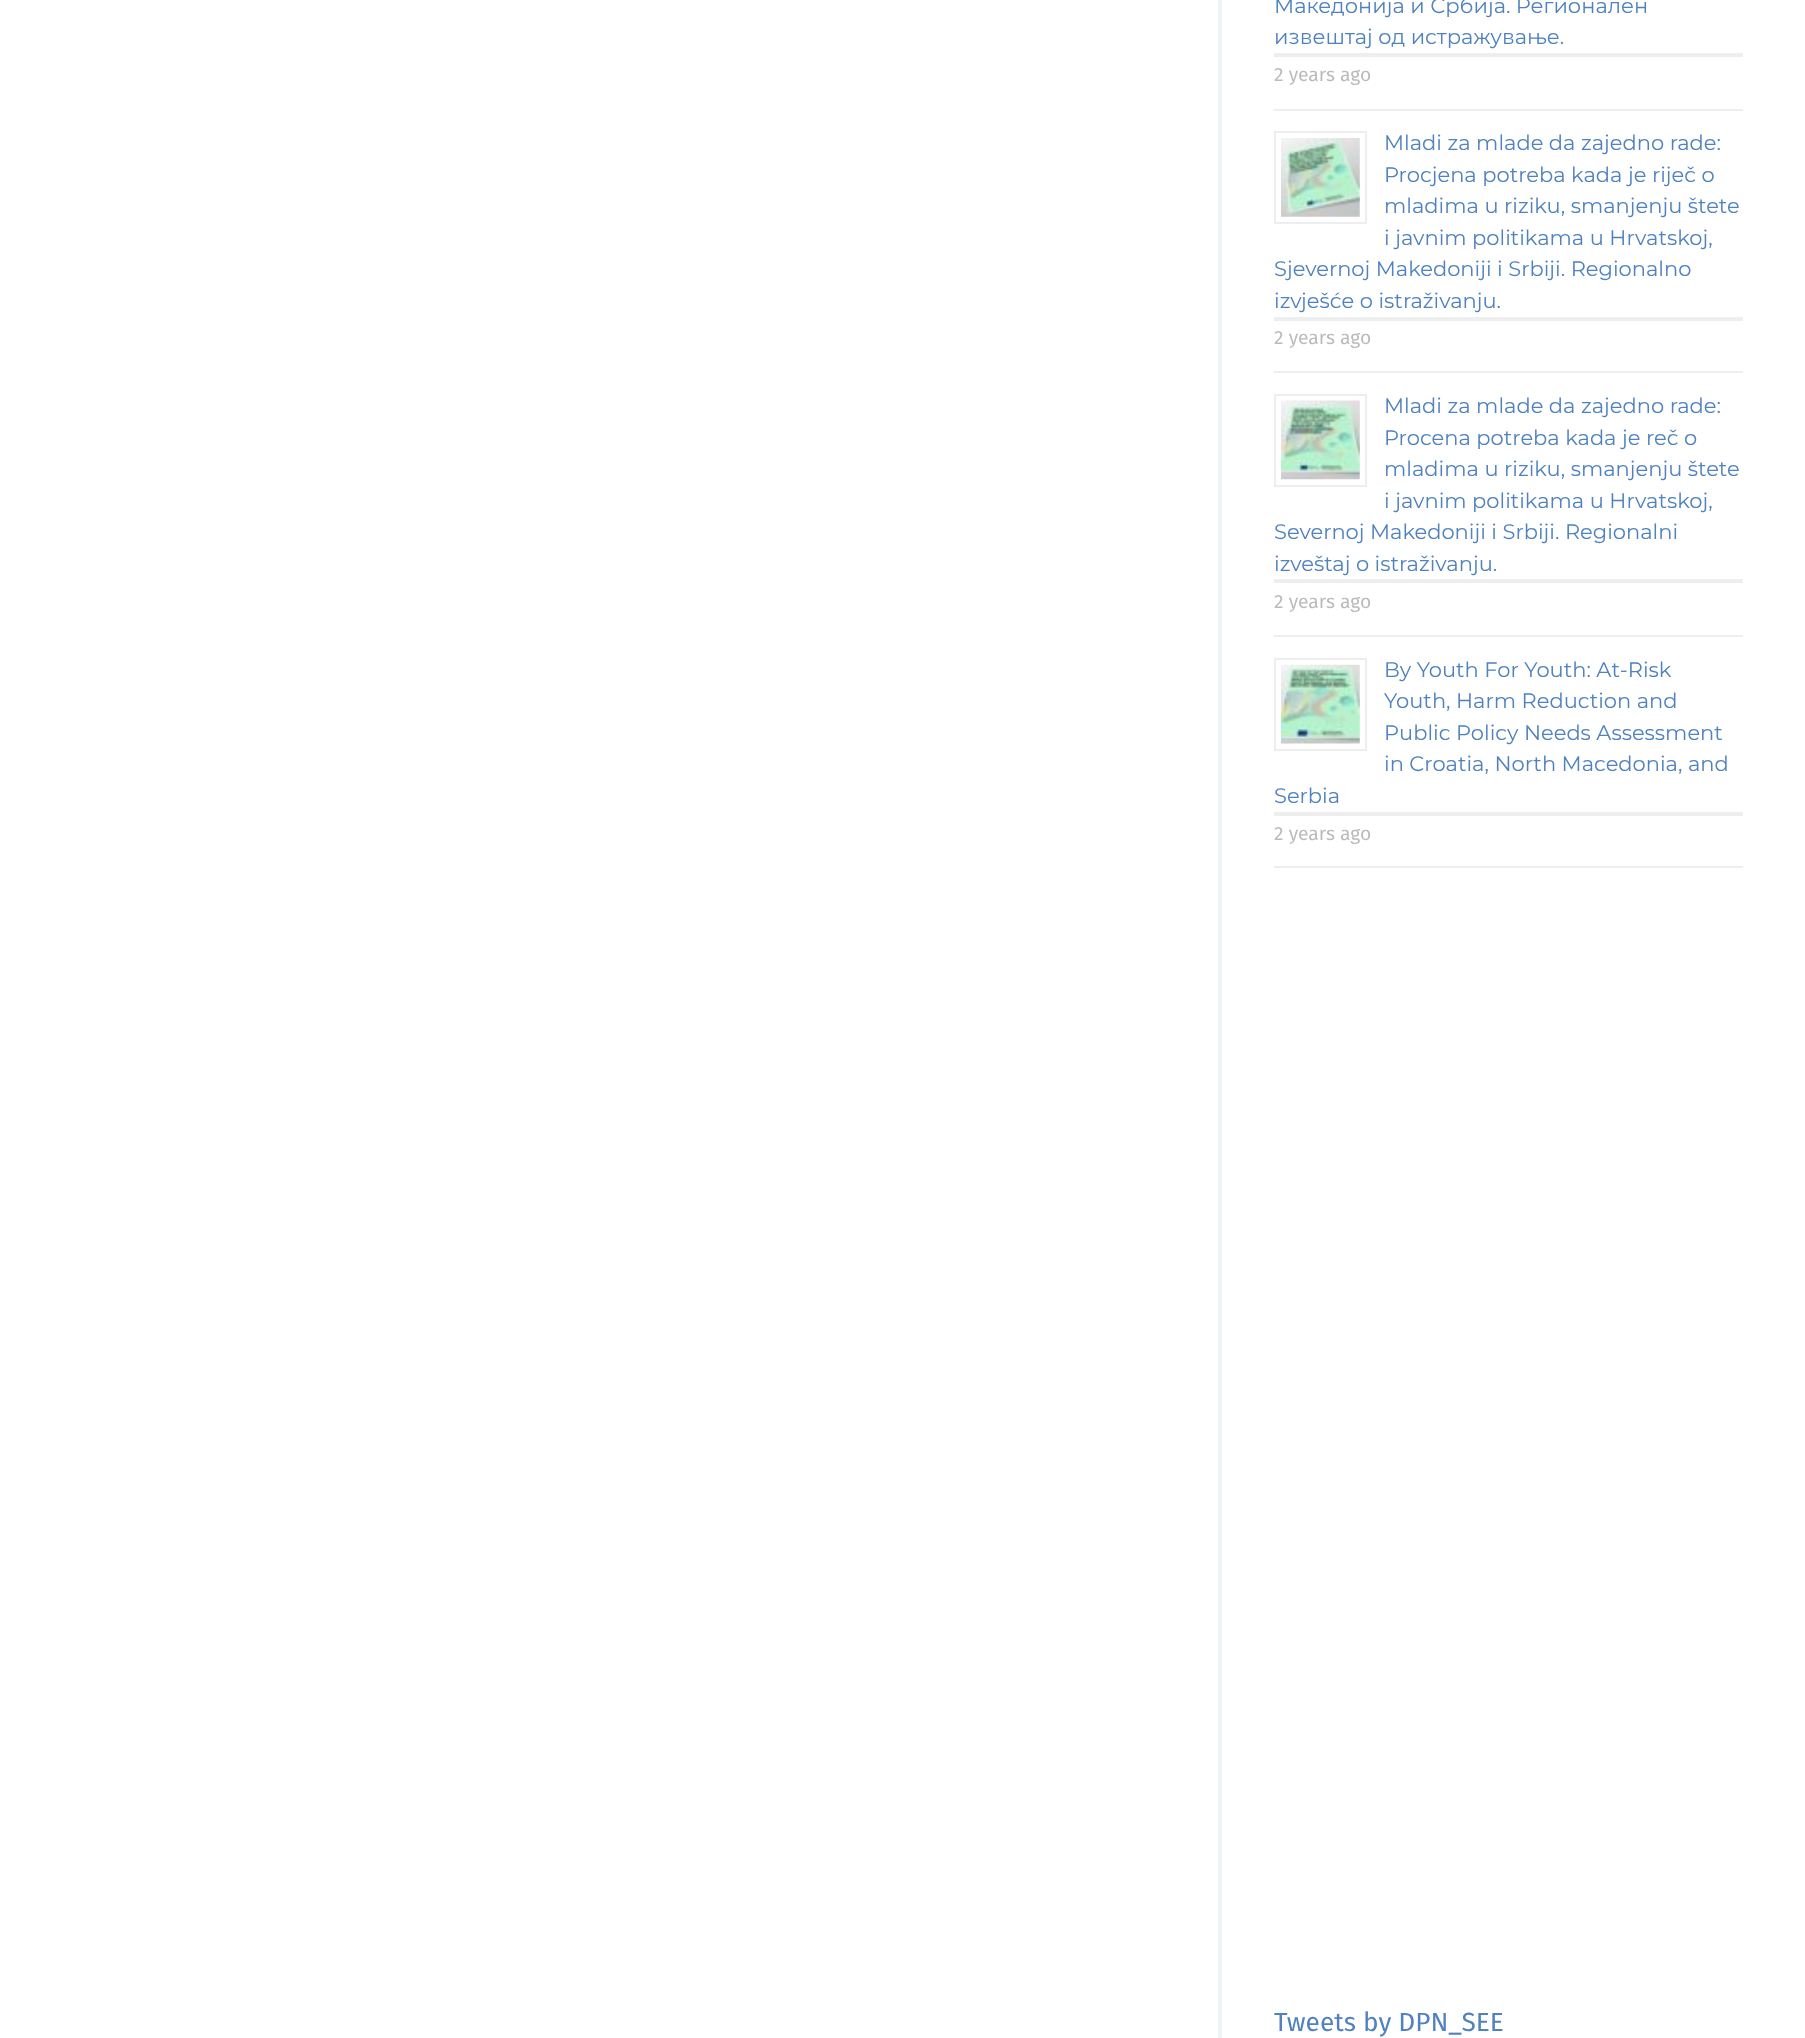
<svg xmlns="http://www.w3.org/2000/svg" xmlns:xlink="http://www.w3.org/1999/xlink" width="1805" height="2038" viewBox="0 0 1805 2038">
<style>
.cls-1{font:21px Montserrat;fill:#4f82bf}
.cls-2{font:19.25px Fira Sans;fill:#bbbbbb}
.cls-3{font:26.25px Fira Sans;fill:#4f82bf}
</style>
<rect width="100%" height="100%" fill="#ffffff"/>
<rect fill="#edf3f9" x="1218" y="0" width="4" height="2038"/>
<rect fill="#eeeeee" x="1274" y="109" width="469" height="2"/>
<rect fill="#eeeeee" x="1274" y="53" width="469" height="4"/>
<rect fill="#eeeeee" x="1274" y="371" width="469" height="2"/>
<rect fill="none" stroke="#eeeeee" stroke-width="2" x="1275" y="132" width="91" height="91"/>
<image xlink:href="image0.png" x="1281" y="138" width="79" height="79"/>
<rect fill="#eeeeee" x="1274" y="317" width="469" height="4"/>
<rect fill="#eeeeee" x="1274" y="635" width="469" height="2"/>
<rect fill="none" stroke="#eeeeee" stroke-width="2" x="1275" y="395" width="91" height="91"/>
<image xlink:href="image1.png" x="1281" y="400" width="79" height="80"/>
<rect fill="#eeeeee" x="1274" y="579" width="469" height="4"/>
<rect fill="#eeeeee" x="1274" y="866" width="469" height="2"/>
<rect fill="none" stroke="#eeeeee" stroke-width="2" x="1275" y="659" width="91" height="91"/>
<image xlink:href="image2.png" x="1281" y="664" width="79" height="80"/>
<rect fill="#eeeeee" x="1274" y="812" width="469" height="4"/>
<text class="cls-1"><tspan x="1274" y="13">Македонија и Србија. Регионален</tspan><tspan x="1274" y="44">извештај oд истражување.</tspan></text>
<text class="cls-2" x="1274" y="81">2 years ago</text>
<text class="cls-1"><tspan x="1384" y="150">Mladi za mlade da zajedno rade:</tspan><tspan x="1384" y="182">Procjena potreba kada je riječ o</tspan><tspan x="1384" y="213">mladima u riziku, smanjenju štete</tspan><tspan x="1384" y="245">i javnim politikama u Hrvatskoj,</tspan></text>
<text class="cls-1"><tspan x="1274" y="276">Sjevernoj Makedoniji i Srbiji. Regionalno</tspan><tspan x="1274" y="308">izvješće o istraživanju.</tspan></text>
<text class="cls-2" x="1274" y="344">2 years ago</text>
<text class="cls-1"><tspan x="1384" y="413">Mladi za mlade da zajedno rade:</tspan><tspan x="1384" y="445">Procena potreba kada je reč o</tspan><tspan x="1384" y="476">mladima u riziku, smanjenju štete</tspan><tspan x="1384" y="508">i javnim politikama u Hrvatskoj,</tspan></text>
<text class="cls-1"><tspan x="1274" y="539">Severnoj Makedoniji i Srbiji. Regionalni</tspan><tspan x="1274" y="571">izveštaj o istraživanju.</tspan></text>
<text class="cls-2" x="1274" y="608">2 years ago</text>
<text class="cls-1"><tspan x="1384" y="677">By Youth For Youth: At-Risk</tspan><tspan x="1384" y="708">Youth, Harm Reduction and</tspan><tspan x="1384" y="740">Public Policy Needs Assessment</tspan><tspan x="1384" y="771">in Croatia, North Macedonia, and</tspan></text>
<text class="cls-1" x="1274" y="803">Serbia</text>
<text class="cls-2" x="1274" y="840">2 years ago</text>
<text class="cls-3" x="1274" y="2031">Tweets by DPN_SEE</text>
</svg>
